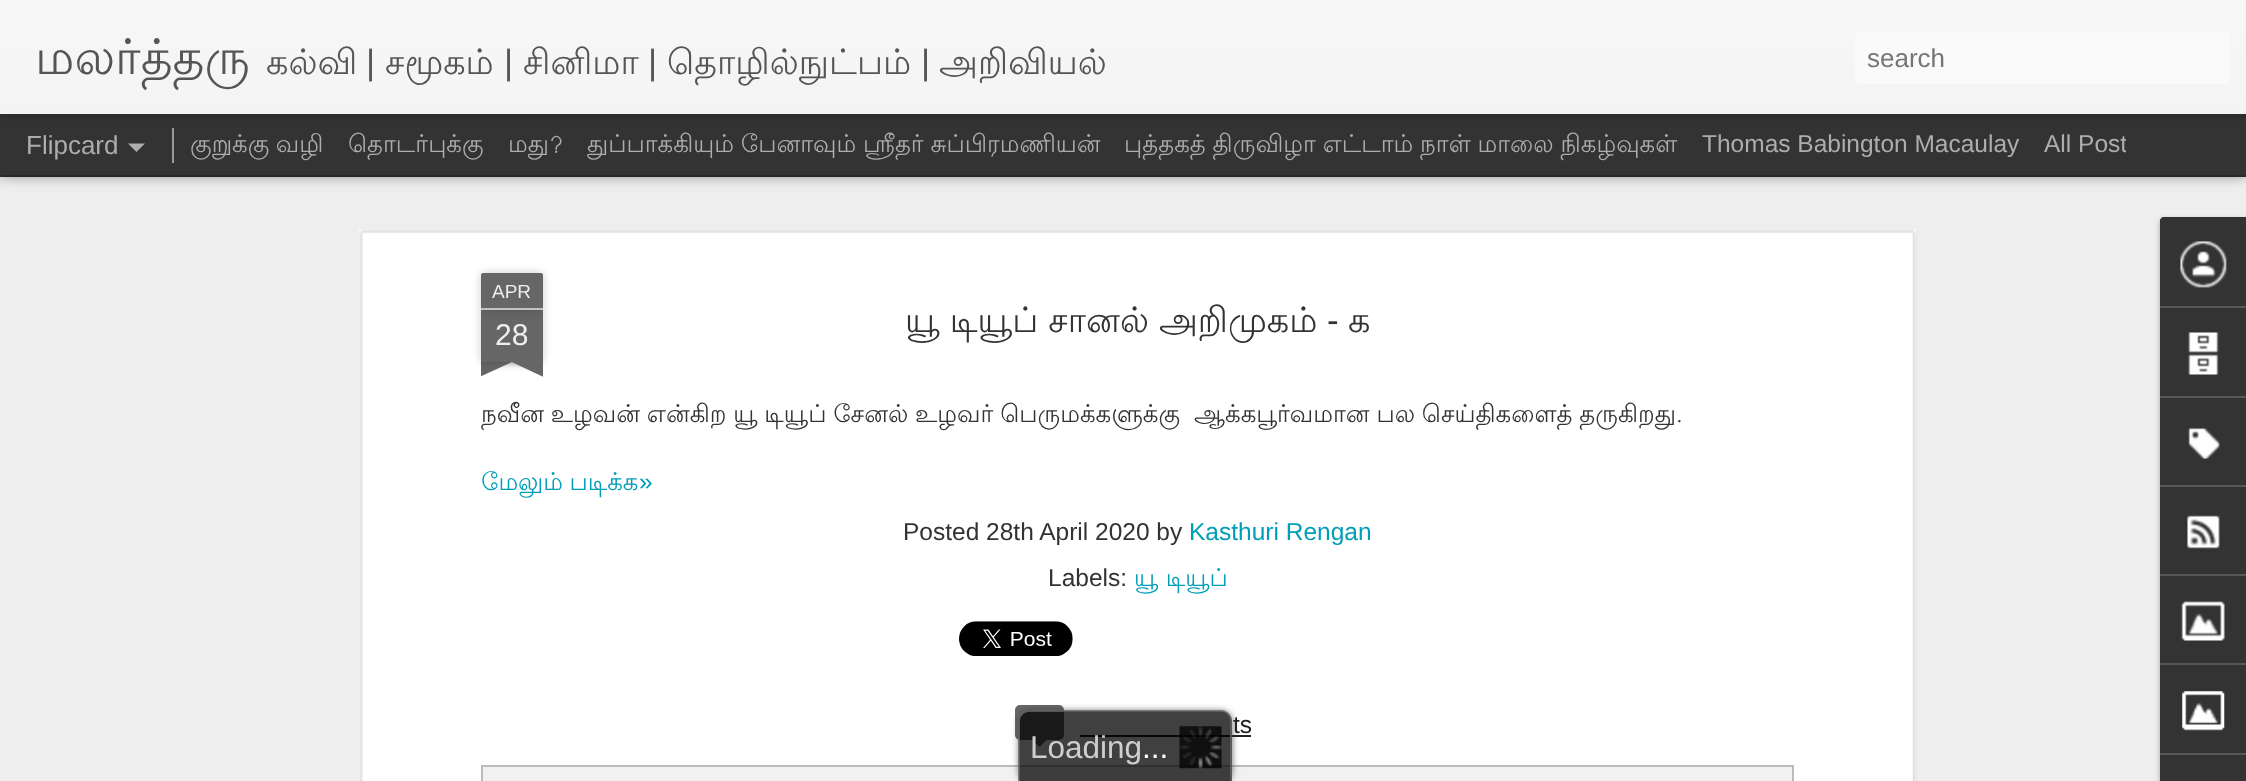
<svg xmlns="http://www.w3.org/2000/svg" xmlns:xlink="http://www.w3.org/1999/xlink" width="2246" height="781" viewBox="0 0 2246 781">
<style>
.cls-1{font:49px Lohit Tamil;fill:#555555}
.cls-2{font:35px Lohit Tamil;fill:#555555}
.cls-3{font:35px Liberation Sans;fill:#555555}
.cls-4{font:26px Liberation Sans;fill:#757575}
.cls-5{font:26px Liberation Sans;fill:#adadad}
.cls-6{font:24.5px Lohit Tamil;fill:#adadad}
.cls-7{font:24.5px Liberation Sans;fill:#adadad}
.cls-8{font:19px Liberation Sans;fill:#eeeeee}
.cls-9{font:30px Liberation Sans;fill:#eeeeee}
.cls-10{font:35px Lohit Tamil;fill:#333333}
.cls-11{font:35px Liberation Sans;fill:#333333}
.cls-12{font:24.5px Lohit Tamil;fill:#333333}
.cls-13{font:24.5px Lohit Tamil;fill:#009eb8}
.cls-14{font:24.5px Liberation Sans;fill:#009eb8}
.cls-15{font:24.5px Liberation Sans;fill:#333333}
.cls-16{font:24.5px Liberation Sans;fill:#222222}
.cls-17{font:31.5px Liberation Sans;fill:#cfcfcf}
.cls-18{font:31.5px Liberation Sans;fill:#ffffff}
</style>
<defs>
<linearGradient id="g1" gradientUnits="userSpaceOnUse" x1="0" y1="0" x2="0" y2="114"><stop offset="0" stop-color="#f7f7f7"/><stop offset="1" stop-color="#f4f4f4"/></linearGradient>
<clipPath id="clip1"><rect x="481" y="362" width="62" height="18"/></clipPath>
<clipPath id="clip2"><rect x="481" y="362" width="62" height="18"/></clipPath>
<clipPath id="clip3"><path d="M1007 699H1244V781H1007ZM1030 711H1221C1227 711 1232 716 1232 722V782H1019V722C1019 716 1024 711 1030 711Z" clip-rule="evenodd"/></clipPath>
<clipPath id="clip4"><rect x="172" y="114" width="1954" height="61"/></clipPath>
</defs>
<rect width="100%" height="100%" fill="#333333"/>
<rect fill="#eeeeee" x="0" y="177" width="2246" height="604"/>
<rect fill="#000000" fill-opacity="0.5" filter="blur(7px)" x="0" y="114" width="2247" height="61"/>
<rect fill="#333333" x="0" y="114" width="2246" height="61"/>
<rect fill="#999999" x="172" y="128" width="2" height="35"/>
<rect fill="#000000" fill-opacity="0.3" filter="blur(4.5px)" x="0" y="0" width="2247" height="114"/>
<rect fill="url(#g1)" x="0" y="0" width="2246" height="114"/>
<rect fill="#fafafa" x="1855" y="32" width="375" height="52" rx="5"/>
<path fill="#adadad" d="M128 143.5H145L136.5 152Z"/>
<rect fill="#ffffff" x="359" y="229" width="1557" height="552"/>
<image xlink:href="image0.png" x="359" y="229" width="1558" height="552"/>
<rect fill="#000000" fill-opacity="0.2" filter="blur(4.5px)" x="481" y="310" width="62" height="52"/>
<rect fill="#666666" x="481" y="310" width="62" height="52"/>
<rect fill="#000000" fill-opacity="0.2" filter="blur(4.5px)" x="481" y="273" width="62" height="37" rx="2"/>
<path fill="#666666" d="M483 273H541C542 273 543 274 543 275V310H481V275C481 274 482 273 483 273Z"/>
<rect fill="#c2c2c2" x="481" y="308" width="62" height="2"/>
<g clip-path="url(#clip1)">
<rect fill="#000000" fill-opacity="0.2" filter="blur(4.5px)" x="466" y="345" width="87" height="17"/>
</g>
<g clip-path="url(#clip2)">
<path fill="#666666" d="M466 364L545 327L553 343L473 380Z"/>
</g>
<g clip-path="url(#clip1)">
<rect fill="#000000" fill-opacity="0.2" filter="blur(4.5px)" x="471" y="345" width="87" height="17"/>
</g>
<g clip-path="url(#clip2)">
<path fill="#666666" d="M479 327L558 364L550 380L471 343Z"/>
</g>
<image xlink:href="image1.png" x="959" y="621" width="114" height="35"/>
<rect fill="#666666" stroke="#666666" stroke-width="2" x="1016" y="706" width="47" height="33" rx="4"/>
<path fill="#666666" d="M1031 738.5H1048L1039.5 747Z"/>
<rect fill="#222222" x="1080" y="735" width="171" height="2"/>
<rect fill="#f1f1f1" stroke="#bbbbbb" stroke-width="2" x="482" y="766" width="1311" height="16"/>
<rect fill="#000000" fill-opacity="0.3" filter="blur(2.5px)" x="2160" y="219" width="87" height="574" rx="4"/>
<path fill="#333333" d="M2164 217H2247V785H2164C2162 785 2160 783 2160 781V221C2160 219 2162 217 2164 217Z"/>
<path fill="#333333" d="M2164 217H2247V306H2160V221C2160 219 2162 217 2164 217Z"/>
<image xlink:href="image2.png" x="2180" y="241" width="47" height="47"/>
<rect fill="#585858" x="2160" y="306" width="86" height="2"/>
<image xlink:href="image3.png" x="2188" y="332" width="31" height="43"/>
<rect fill="#585858" x="2160" y="396" width="86" height="2"/>
<image xlink:href="image4.png" x="2188" y="428" width="32" height="31"/>
<rect fill="#585858" x="2160" y="485" width="86" height="2"/>
<image xlink:href="image5.png" x="2187" y="515" width="33" height="34"/>
<rect fill="#585858" x="2160" y="574" width="86" height="2"/>
<image xlink:href="image6.png" x="2181" y="601" width="44" height="40"/>
<rect fill="#585858" x="2160" y="663" width="86" height="2"/>
<image xlink:href="image7.png" x="2182" y="691" width="43" height="40"/>
<rect fill="#585858" x="2160" y="753" width="86" height="2"/>
<g clip-path="url(#clip3)">
<rect fill="#333333" fill-opacity="0.75" filter="blur(3.5px)" x="1019" y="711" width="213" height="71" rx="11"/>
</g>
<path fill="#000000" fill-opacity="0.75" d="M1030 711H1221C1227 711 1232 716 1232 722V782H1019V722C1019 716 1024 711 1030 711Z"/>
<path fill="#666666" fill-opacity="0.75" fill-rule="evenodd" d="M1029 710H1222C1227 710 1232 715 1232 721V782H1018V721C1018 715 1023 710 1029 710ZM1029 712H1222C1226 712 1230 716 1230 721V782H1020V721C1020 716 1024 712 1029 712Z"/>
<image xlink:href="image8.png" x="1179" y="726" width="43" height="43"/>
<text class="cls-1" x="35" y="74">மலர்த்தரு</text>
<text class="cls-2" x="266" y="74">கல்வி</text>
<text class="cls-3" x="366" y="74">|</text>
<text class="cls-2" x="385" y="74">சமூகம்</text>
<text class="cls-3" x="504" y="74">|</text>
<text class="cls-2" x="523" y="74">சினிமா</text>
<text class="cls-3" x="648" y="74">|</text>
<text class="cls-2" x="667" y="74">தொழில்நுட்பம்</text>
<text class="cls-3" x="921" y="74">|</text>
<text class="cls-2" x="939" y="74">அறிவியல்</text>
<text class="cls-4" x="1867" y="67">search</text>
<text class="cls-5" x="26" y="154">Flipcard</text>
<text class="cls-6" x="190" y="152" word-spacing="-1">குறுக்கு வழி</text>
<text class="cls-6" x="348" y="152">தொடர்புக்கு</text>
<text class="cls-6" x="508" y="152">மது?</text>
<text class="cls-6" x="587" y="152" word-spacing="-0.5">துப்பாக்கியும் பேனாவும் ஸ்ரீதர் சுப்பிரமணியன்</text>
<text class="cls-6" x="1124" y="152" word-spacing="-0.5">புத்தகத் திருவிழா எட்டாம் நாள் மாலை நிகழ்வுகள்</text>
<text class="cls-7" x="1702" y="152">Thomas Babington Macaulay</text>
<g clip-path="url(#clip4)">
<text class="cls-7" x="2044" y="152">All Post</text>
</g>
<text class="cls-8" x="492" y="298">APR</text>
<text class="cls-9" x="495" y="345">28</text>
<text class="cls-10" x="905" y="332" word-spacing="-0.5">யூ டியூப் சானல் அறிமுகம்</text>
<text class="cls-11" x="1327" y="332">-</text>
<text class="cls-10" x="1348" y="332">க</text>
<text class="cls-12" x="481" y="422" word-spacing="-0.5">நவீன உழவன் என்கிற யூ டியூப் சேனல் உழவர் பெருமக்களுக்கு</text>
<text class="cls-12" x="1194" y="422" word-spacing="-0.5">ஆக்கபூர்வமான பல செய்திகளைத் தருகிறது.</text>
<text class="cls-13" x="481" y="490" word-spacing="-1">மேலும் படிக்க</text>
<text class="cls-14" x="639" y="490">»</text>
<text class="cls-15" x="903" y="540">Posted 28th April 2020 by</text>
<text class="cls-14" x="1189" y="540">Kasthuri Rengan</text>
<text class="cls-15" x="1048" y="586">Labels:</text>
<text class="cls-13" x="1134" y="586">யூ டியூப்</text>
<text class="cls-16" x="1233" y="733">ts</text>
<text class="cls-17" x="1030" y="758">Loading</text>
<text class="cls-18" x="1142" y="758">...</text>
</svg>
